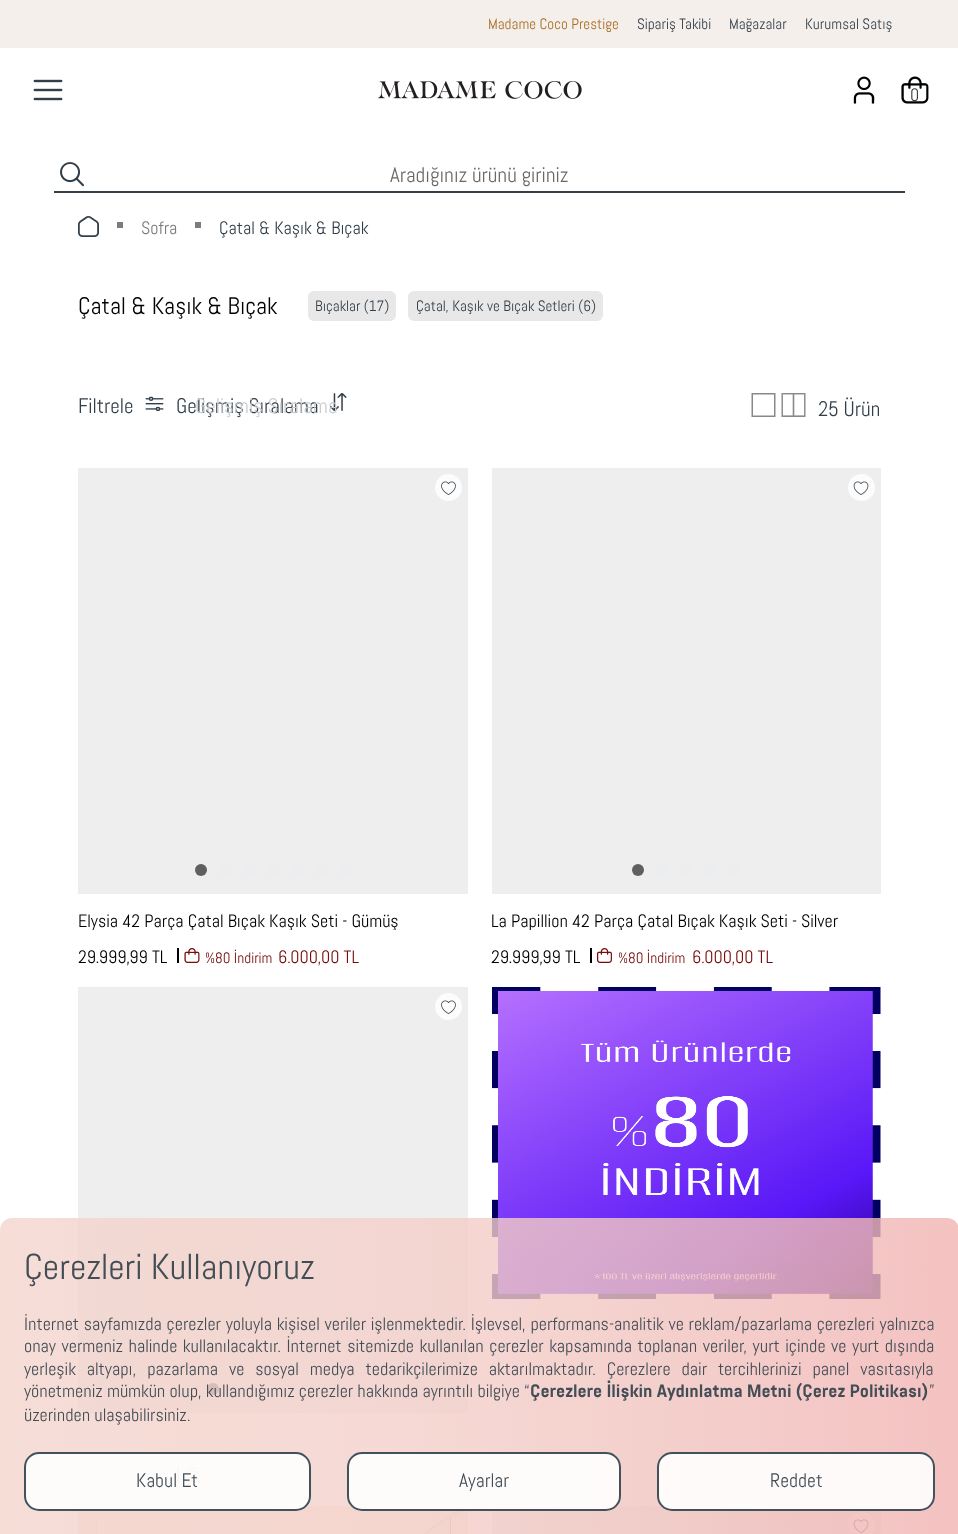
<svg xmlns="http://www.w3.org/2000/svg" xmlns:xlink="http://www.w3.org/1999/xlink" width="958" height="1534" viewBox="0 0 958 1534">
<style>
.cls-1{font:15px Abel;fill:#a86e24}
.cls-2{font:15px Abel;fill:#323e48}
.cls-3{font:18px Abel;fill:#323e48}
.cls-4{font:21px Abel;fill:#696969}
.cls-5{font:18px Abel;fill:#7c7c7c}
.cls-6{font:24px Abel;fill:#000000}
.cls-7{font:21px Abel;fill:#323e48}
.cls-8{font:21px Abel;fill:#cacdcf}
.cls-9{font:18px Abel;fill:#000000}
.cls-10{font:15px Abel;fill:#760c0c}
.cls-11{font:18px Abel;fill:#760c0c}
.cls-12{font:36px Abel;fill:#424d56}
.cls-13{font:18px Abel;fill:#424d56}
.cls-14{font:bold 18px Abel;fill:#424d56}
.cls-15{font:19.5px Abel;fill:#424d56}
</style>
<defs>
<linearGradient id="g1" gradientUnits="userSpaceOnUse" x1="0" y1="1376" x2="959" y2="1376"><stop offset="0" stop-color="#f4d5cd" stop-opacity="0.81"/><stop offset="0.43" stop-color="#f4d0ca" stop-opacity="0.81"/><stop offset="0.7" stop-color="#f1c4c0" stop-opacity="0.81"/><stop offset="1" stop-color="#f1b4b3" stop-opacity="0.81"/></linearGradient>
<clipPath id="clip1"><rect x="78" y="912" width="390" height="18"/></clipPath>
<clipPath id="clip2"><rect x="492" y="912" width="389" height="18"/></clipPath>
</defs>
<rect width="100%" height="100%" fill="#ffffff"/>
<rect fill="#f5efec" x="0" y="0" width="958" height="48"/>
<image xlink:href="image0.png" x="33" y="79" width="30" height="22"/>
<image xlink:href="image1.png" x="378" y="81" width="204" height="18"/>
<image xlink:href="image2.png" x="853" y="76" width="22" height="28"/>
<image xlink:href="image4.png" x="60" y="162" width="24" height="25"/>
<rect fill="#343e47" x="54" y="191" width="851" height="2"/>
<image xlink:href="image5.png" x="78" y="216" width="21" height="21"/>
<rect fill="#7c7c7c" x="117" y="222" width="6" height="6"/>
<rect fill="#7c7c7c" x="195" y="222" width="6" height="6"/>
<rect fill="#e8e8e8" x="308" y="291" width="88" height="30" rx="6"/>
<rect fill="#e8e8e8" x="408" y="291" width="195" height="30" rx="6"/>
<image xlink:href="image6.png" x="145" y="396" width="19" height="15"/>
<image xlink:href="image7.png" x="330" y="393" width="17" height="18"/>
<path fill="#898989" d="M753 394.5H774V415.5H753ZM751.5 417H775.5V393H751.5Z"/>
<image xlink:href="image8.png" x="781" y="393" width="25" height="24"/>
<rect fill="#eeeeee" x="78" y="468" width="390" height="426"/>
<circle fill="#5f5f5f" cx="201" cy="870" r="6"/>
<circle fill="#ebedef" cx="225" cy="870" r="6"/>
<circle fill="#ebedef" cx="249" cy="870" r="6"/>
<circle fill="#ebedef" cx="273" cy="870" r="6"/>
<circle fill="#ebedef" cx="297" cy="870" r="6"/>
<circle fill="#ebedef" cx="321" cy="870" r="6"/>
<circle fill="#ebedef" cx="345" cy="870" r="6"/>
<circle fill="#fcfcfc" cx="448.5" cy="487.5" r="13.5"/>
<image xlink:href="image9.png" x="441" y="481" width="15" height="14"/>
<rect fill="#000000" x="177" y="948" width="2" height="15"/>
<image xlink:href="image10.png" x="184" y="948" width="16" height="15"/>
<rect fill="#eeeeee" x="492" y="468" width="389" height="426"/>
<circle fill="#5f5f5f" cx="638" cy="870" r="6"/>
<circle fill="#ebedef" cx="662" cy="870" r="6"/>
<circle fill="#ebedef" cx="686" cy="870" r="6"/>
<circle fill="#ebedef" cx="710" cy="870" r="6"/>
<circle fill="#ebedef" cx="734" cy="870" r="6"/>
<circle fill="#fcfcfc" cx="861.5" cy="487.5" r="13.5"/>
<image xlink:href="image11.png" x="853" y="481" width="16" height="14"/>
<rect fill="#000000" x="590" y="948" width="2" height="15"/>
<image xlink:href="image12.png" x="596" y="948" width="16" height="15"/>
<rect fill="#eeeeee" x="78" y="987" width="390" height="426"/>
<circle fill="#5f5f5f" cx="213" cy="1389" r="6"/>
<circle fill="#ebedef" cx="237" cy="1389" r="6"/>
<circle fill="#ebedef" cx="261" cy="1389" r="6"/>
<circle fill="#ebedef" cx="285" cy="1389" r="6"/>
<circle fill="#ebedef" cx="309" cy="1389" r="6"/>
<circle fill="#ebedef" cx="333" cy="1389" r="6"/>
<circle fill="#fcfcfc" cx="448.5" cy="1006.5" r="13.5"/>
<image xlink:href="image9.png" x="441" y="1000" width="15" height="14"/>
<rect fill="#000000" x="177" y="1467" width="2" height="15"/>
<image xlink:href="image10.png" x="184" y="1467" width="16" height="15"/>
<image xlink:href="image13.png" x="492" y="987" width="389" height="312"/>
<image xlink:href="image14.png" x="78" y="1506" width="390" height="28"/>
<rect fill="#eeeeee" x="492" y="1506" width="389" height="28"/>
<circle fill="#fcfcfc" cx="861.5" cy="1525.5" r="13.5"/>
<image xlink:href="image11.png" x="853" y="1519" width="16" height="14"/>
<path fill="url(#g1)" d="M12 1218H947C953.5 1218 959 1223.5 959 1230V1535H0V1230C0 1223.5 5.5 1218 12 1218Z"/>
<rect fill="#ffffff" fill-opacity="0.9" x="24" y="1452" width="287" height="59" rx="15"/>
<rect fill="none" stroke="#2e3e48" stroke-opacity="0.9" stroke-width="2" x="25" y="1453" width="285" height="57" rx="14"/>
<rect fill="#ffffff" fill-opacity="0.9" x="347" y="1452" width="274" height="59" rx="15"/>
<rect fill="none" stroke="#2e3e48" stroke-opacity="0.9" stroke-width="2" x="348" y="1453" width="272" height="57" rx="14"/>
<rect fill="#ffffff" fill-opacity="0.9" x="657" y="1452" width="278" height="59" rx="15"/>
<rect fill="none" stroke="#2e3e48" stroke-opacity="0.9" stroke-width="2" x="658" y="1453" width="276" height="57" rx="14"/>
<text class="cls-1" x="488" y="29">Madame Coco Prestige</text>
<text class="cls-2" x="637" y="29">Sipariş Takibi</text>
<text class="cls-2" x="729" y="29">Mağazalar</text>
<text class="cls-2" x="805" y="29">Kurumsal Satış</text>
<text class="cls-3" x="910" y="101">0</text>
<image xlink:href="image3.png" x="901" y="76" width="28" height="28"/>
<text class="cls-4" x="390" y="182">Aradığınız ürünü giriniz</text>
<text class="cls-5" x="141" y="234">Sofra</text>
<text class="cls-3" x="219" y="234">Çatal &amp; Kaşık &amp; Bıçak</text>
<text class="cls-6" x="78" y="314">Çatal &amp; Kaşık &amp; Bıçak</text>
<text class="cls-2" x="315" y="311">Bıçaklar (17)</text>
<text class="cls-2" x="416" y="311">Çatal, Kaşık ve Bıçak Setleri (6)</text>
<text class="cls-7" x="78" y="413">Filtrele</text>
<text class="cls-7" x="176" y="413">Gelişmiş Sıralama</text>
<text class="cls-8" x="195" y="413">Gelişmiş Sıralama</text>
<text class="cls-7" x="818" y="416">25 Ürün</text>
<g clip-path="url(#clip1)">
<text class="cls-9" x="78" y="927">Elysia 42 Parça Çatal Bıçak Kaşık Seti - Gümüş</text>
</g>
<text class="cls-9" x="78" y="963">29.999,99 TL</text>
<text class="cls-10" x="205" y="963">%80 İndirim</text>
<text class="cls-11" x="278" y="963">6.000,00 TL</text>
<g clip-path="url(#clip2)">
<text class="cls-9" x="491" y="927">La Papillion 42 Parça Çatal Bıçak Kaşık Seti -</text>
</g>
<text class="cls-9" x="801" y="927">Silver</text>
<text class="cls-9" x="491" y="963">29.999,99 TL</text>
<text class="cls-10" x="618" y="963">%80 İndirim</text>
<text class="cls-11" x="692" y="963">6.000,00 TL</text>
<text class="cls-12" x="24" y="1279">Çerezleri Kullanıyoruz</text>
<text class="cls-13"><tspan x="24" y="1330" word-spacing="0.6">İnternet sayfamızda çerezler yoluyla kişisel veriler işlenmektedir. İşlevsel, performans-analitik ve reklam/pazarlama çerezleri yalnızca</tspan><tspan x="24" y="1352" word-spacing="1.4">onay vermeniz halinde kullanılacaktır. İnternet sitemizde kullanılan çerezler kapsamında toplanan veriler, yurt içinde ve yurt dışında</tspan><tspan x="24" y="1375" word-spacing="6.75">yerleşik altyapı, pazarlama ve sosyal medya tedarikçilerimize aktarılmaktadır. Çerezlere dair tercihlerinizi panel vasıtasıyla</tspan><tspan x="24" y="1397">yönetmeniz mümkün olup, kullandığımız çerezler hakkında ayrıntılı bilgiye “</tspan></text>
<text class="cls-14" x="530" y="1397">Çerezlere İlişkin Aydınlatma Metni (Çerez Politikası)</text>
<text class="cls-13" x="929" y="1397">”</text>
<text class="cls-13" x="24" y="1421">üzerinden ulaşabilirsiniz.</text>
<text class="cls-15" x="136" y="1487">Kabul Et</text>
<text class="cls-15" x="459" y="1487">Ayarlar</text>
<text class="cls-15" x="770" y="1487">Reddet</text>
</svg>
